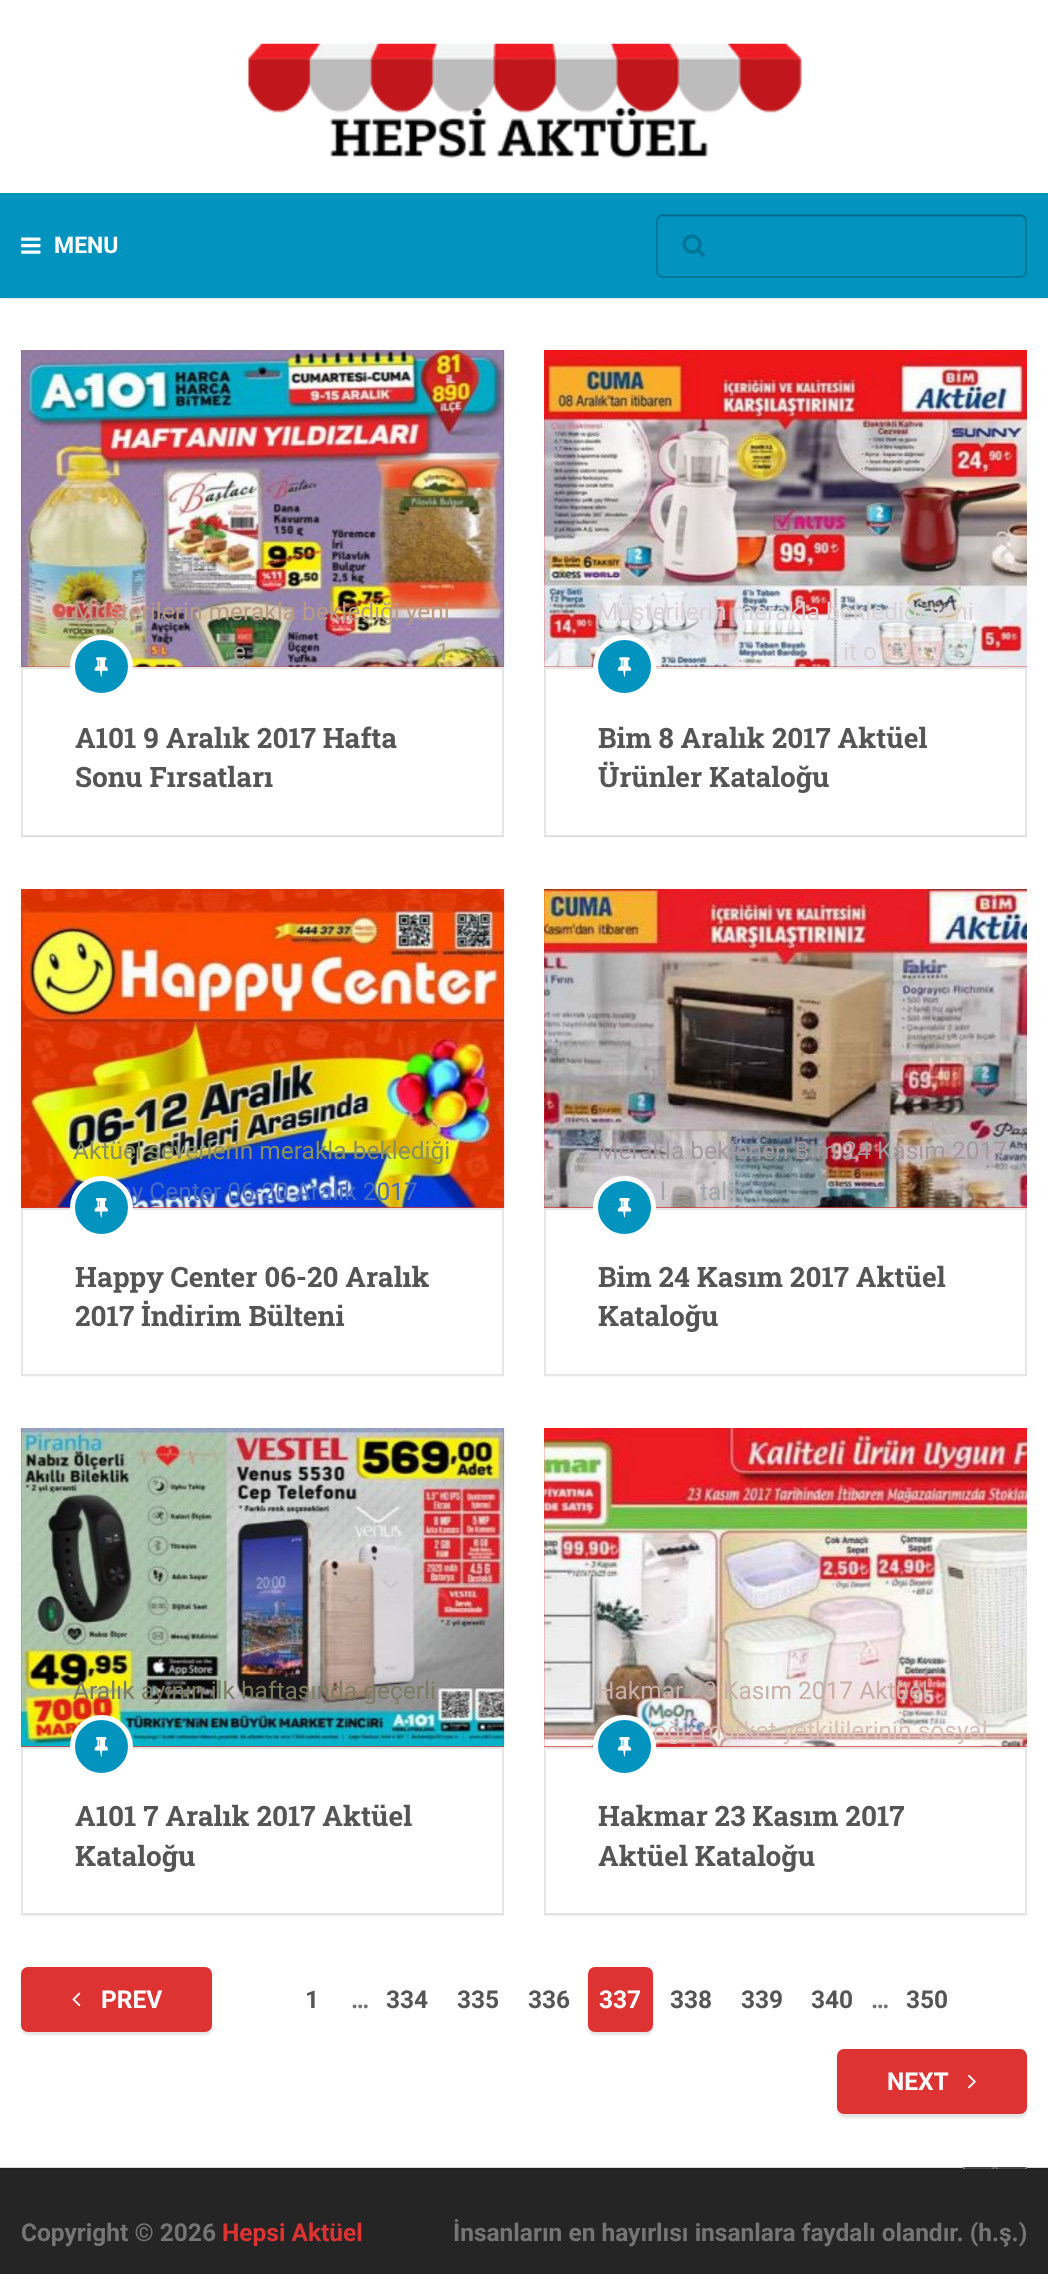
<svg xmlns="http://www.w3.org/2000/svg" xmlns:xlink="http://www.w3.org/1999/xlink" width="1048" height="2274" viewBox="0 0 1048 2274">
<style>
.cls-1{font:bold 23px Roboto;fill:#ffffff}
.cls-2{font:24.5px Roboto;fill:#b99b85}
.cls-3{font:24.5px Roboto;fill:#a79f91}
.cls-4{font:bold 28px Roboto Slab;fill:#555555}
.cls-5{font:24.5px Roboto;fill:#d9d1d4}
.cls-6{font:24.5px Roboto;fill:#889060}
.cls-7{font:24.5px Roboto;fill:#486cc5}
.cls-8{font:24.5px Roboto;fill:#a5989d}
.cls-9{font:24.5px Roboto;fill:#9da6ac}
.cls-10{font:24.5px Roboto;fill:#7d7b62}
.cls-11{font:24.5px Roboto;fill:#c8afa8}
.cls-12{font:24.5px Roboto;fill:#d7bfb8}
.cls-13{font:bold 24.5px Roboto;fill:#ffffff}
.cls-14{font:bold 24.5px Roboto;fill:#555555}
.cls-15{font:bold 24.5px Roboto;fill:#757575}
.cls-16{font:bold 24.5px Roboto;fill:#dd3333}
</style>
<defs>
<clipPath id="clip1"><rect x="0" y="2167" width="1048" height="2"/></clipPath>
<clipPath id="clip2"><rect x="0" y="2167" width="1048" height="2"/></clipPath>
</defs>
<rect width="100%" height="100%" fill="#dadada"/>
<rect fill="#ffffff" x="0" y="0" width="1048" height="193"/>
<image xlink:href="image0.png" x="247" y="43" width="555" height="115"/>
<rect fill="#ffffff" x="0" y="298" width="1048" height="1869"/>
<rect fill="#000000" fill-opacity="0.1" filter="blur(1px)" x="0" y="194" width="1048" height="105"/>
<rect fill="#0393bf" x="0" y="193" width="1048" height="105"/>
<image xlink:href="image1.png" x="21" y="237" width="20" height="17"/>
<path fill="#0384ac" d="M663 217H1020C1023 217 1026 219 1026 222C1026 219 1025 215 1021 215H663C659 215 658 219 658 222C658 219 660 217 663 217Z"/>
<rect fill="none" stroke="#000000" stroke-opacity="0.18" stroke-width="2" x="657" y="215" width="369" height="62" rx="6"/>
<image xlink:href="image2.png" x="682" y="234" width="24" height="24"/>
<rect fill="#f7f7f7" x="21" y="836" width="483" height="2"/>
<rect fill="#dd3333" x="21" y="350" width="483" height="317"/>
<image xlink:href="image3.png" x="20" y="350" width="485" height="317"/>
<rect fill="none" stroke="#000000" stroke-opacity="0.1" stroke-width="2" x="22" y="668" width="481" height="168"/>
<circle fill="#0393bf" stroke="#ffffff" stroke-width="5" cx="101.5" cy="666.5" r="29"/>
<image xlink:href="image4.png" x="94" y="657" width="14" height="20"/>
<path fill="#f7f7f7" d="M544 352V838H1027V836H544Z"/>
<rect fill="#dd3333" x="544" y="350" width="483" height="317"/>
<image xlink:href="image5.png" x="544" y="350" width="483" height="317"/>
<rect fill="none" stroke="#000000" stroke-opacity="0.1" stroke-width="2" x="545" y="668" width="481" height="168"/>
<circle fill="#0393bf" stroke="#ffffff" stroke-width="5" cx="624.5" cy="666.5" r="29"/>
<image xlink:href="image6.png" x="617" y="657" width="15" height="20"/>
<rect fill="#f7f7f7" x="21" y="1376" width="483" height="1"/>
<rect fill="#dd3333" x="21" y="889" width="483" height="319"/>
<image xlink:href="image7.png" x="20" y="889" width="485" height="319"/>
<rect fill="none" stroke="#e6e6e6" stroke-width="2" x="22" y="1209" width="481" height="166"/>
<path fill="#f7f7f7" d="M544 891V1377H1027V1376H544Z"/>
<rect fill="#dd3333" x="544" y="889" width="483" height="319"/>
<image xlink:href="image9.png" x="544" y="889" width="483" height="319"/>
<rect fill="none" stroke="#e6e6e6" stroke-width="2" x="545" y="1209" width="481" height="166"/>
<circle fill="#0393bf" stroke="#ffffff" stroke-width="5" cx="624.5" cy="1207.5" r="29"/>
<image xlink:href="image10.png" x="617" y="1198" width="15" height="20"/>
<rect fill="#f7f7f7" x="21" y="1914" width="483" height="2"/>
<rect fill="#dd3333" x="21" y="1428" width="483" height="319"/>
<image xlink:href="image11.png" x="20" y="1428" width="485" height="319"/>
<rect fill="none" stroke="#000000" stroke-opacity="0.1" stroke-width="2" x="22" y="1748" width="481" height="166"/>
<circle fill="#0393bf" stroke="#ffffff" stroke-width="5" cx="101.5" cy="1746.5" r="29"/>
<image xlink:href="image8.png" x="94" y="1737" width="14" height="20"/>
<path fill="#f7f7f7" d="M544 1430V1916H1027V1914H544Z"/>
<rect fill="#dd3333" x="544" y="1428" width="483" height="319"/>
<image xlink:href="image12.png" x="544" y="1428" width="483" height="319"/>
<rect fill="none" stroke="#000000" stroke-opacity="0.1" stroke-width="2" x="545" y="1748" width="481" height="166"/>
<rect fill="#000000" fill-opacity="0.1" filter="blur(1px)" x="21" y="1971" width="191" height="64" rx="7"/>
<rect fill="#dd3333" stroke="#dd3333" stroke-width="2" x="22" y="1968" width="189" height="63" rx="6"/>
<image xlink:href="image13.png" x="72" y="1992" width="9" height="15"/>
<rect fill="#000000" fill-opacity="0.1" filter="blur(1px)" x="588" y="1971" width="65" height="64" rx="7"/>
<rect fill="#dd3333" stroke="#dd3333" stroke-width="2" x="589" y="1968" width="63" height="63" rx="6"/>
<rect fill="#000000" fill-opacity="0.1" filter="blur(1px)" x="837" y="2053" width="190" height="65" rx="7"/>
<rect fill="#dd3333" stroke="#dd3333" stroke-width="2" x="838" y="2050" width="188" height="63" rx="6"/>
<image xlink:href="image14.png" x="968" y="2074" width="8" height="15"/>
<rect fill="#252526" x="0" y="2170" width="1048" height="104"/>
<rect fill="#212122" x="0" y="2168" width="1048" height="2"/>
<g clip-path="url(#clip1)">
<rect fill="#000000" fill-opacity="0.3" filter="blur(1px)" x="963" y="2139" width="64" height="64" rx="32"/>
</g>
<g clip-path="url(#clip2)">
<rect fill="#454545" x="963" y="2137" width="64" height="65" rx="32"/>
<rect fill="none" stroke="#ffffff" stroke-opacity="0.3" stroke-width="2" x="964" y="2138" width="62" height="63" rx="31"/>
</g>
<image xlink:href="image15.png" x="991" y="2167" width="8" height="2"/>
<text class="cls-1" x="54" y="253">MENU</text>
<text class="cls-2" x="73" y="620">Müşterilerin merakla beklediği yeni</text>
<text class="cls-3" x="233" y="660">e</text>
<text class="cls-3" x="436" y="660">1</text>
<text class="cls-4"><tspan x="75" y="748">A101 9 Aralık 2017 Hafta</tspan><tspan x="75" y="787">Sonu Fırsatları</tspan></text>
<text class="cls-5" x="597" y="620">Müşterilerin merakla beklediği yeni</text>
<text class="cls-5" x="843" y="660">it o</text>
<text class="cls-4"><tspan x="598" y="748">Bim 8 Aralık 2017 Aktüel</tspan><tspan x="598" y="787">Ürünler Kataloğu</tspan></text>
<text class="cls-6" x="73" y="1159">Aktüel severlerin merakla beklediği</text>
<text class="cls-7" x="118" y="1200">py Center 06-20 Aralık 2017</text>
<circle fill="#0393bf" stroke="#ffffff" stroke-width="5" cx="101.5" cy="1207.5" r="29"/>
<image xlink:href="image8.png" x="94" y="1198" width="14" height="20"/>
<text class="cls-4"><tspan x="75" y="1287">Happy Center 06-20 Aralık</tspan><tspan x="75" y="1326">2017 İndirim Bülteni</tspan></text>
<text class="cls-8" x="597" y="1159">Merakla beklenen Bim 24 Kasım 2017</text>
<text class="cls-9" x="660" y="1200">l</text>
<text class="cls-9" x="700" y="1200">tal</text>
<text class="cls-9" x="883" y="1200">.</text>
<text class="cls-4"><tspan x="598" y="1287">Bim 24 Kasım 2017 Aktüel</tspan><tspan x="598" y="1326">Kataloğu</tspan></text>
<text class="cls-10" x="73" y="1699">Aralık ayının ilk haftasında geçerli</text>
<text class="cls-4"><tspan x="75" y="1826">A101 7 Aralık 2017 Aktüel</tspan><tspan x="75" y="1866">Kataloğu</tspan></text>
<text class="cls-11" x="597" y="1699">Hakmar 23 Kasım 2017 Aktüel</text>
<text class="cls-12" x="647" y="1739">loğu market yetkililerinin sosyal</text>
<circle fill="#0393bf" stroke="#ffffff" stroke-width="5" cx="624.5" cy="1746.5" r="29"/>
<image xlink:href="image10.png" x="617" y="1737" width="15" height="20"/>
<text class="cls-4"><tspan x="598" y="1826">Hakmar 23 Kasım 2017</tspan><tspan x="598" y="1866">Aktüel Kataloğu</tspan></text>
<text class="cls-13" x="101" y="2008">PREV</text>
<text class="cls-14" x="305" y="2008">1</text>
<text class="cls-15" x="351" y="2008">…</text>
<text class="cls-14" x="386" y="2008">334</text>
<text class="cls-14" x="457" y="2008">335</text>
<text class="cls-14" x="528" y="2008">336</text>
<text class="cls-13" x="599" y="2008">337</text>
<text class="cls-14" x="670" y="2008">338</text>
<text class="cls-14" x="741" y="2008">339</text>
<text class="cls-14" x="811" y="2008">340</text>
<text class="cls-15" x="871" y="2008">…</text>
<text class="cls-14" x="906" y="2008">350</text>
<text class="cls-13" x="887" y="2090">NEXT</text>
<text class="cls-15" x="21" y="2241">Copyright © 2026</text>
<text class="cls-16" x="222" y="2241">Hepsi Aktüel</text>
<text class="cls-15" x="453" y="2241">İnsanların en hayırlısı insanlara faydalı olandır. (h.ş.)</text>
</svg>
